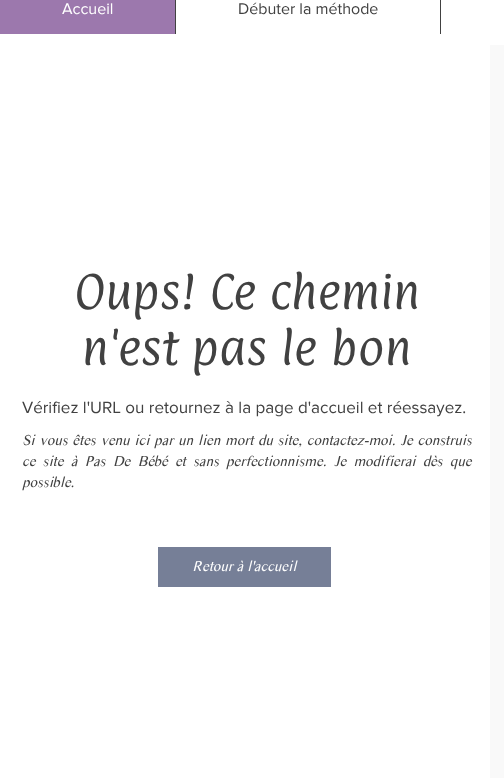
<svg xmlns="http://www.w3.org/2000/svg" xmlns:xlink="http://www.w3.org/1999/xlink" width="504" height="778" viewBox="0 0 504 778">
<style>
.cls-1{font:16px 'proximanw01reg';fill:#ffffff}
.cls-2{font:16px 'proximanw01reg';fill:#414141}
.cls-3{font:40px Paprika;fill:#414141}
.cls-4{font:17px 'proximanw01reg';fill:#414141}
.cls-5{font:italic 15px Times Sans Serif;fill:#414141}
.cls-6{font:italic 15px Times Sans Serif;fill:#ffffff}
</style>
<rect width="100%" height="100%" fill="#ffffff"/>
<rect fill="#9c78ad" x="0" y="0" width="175" height="34"/>
<rect fill="#414141" x="175" y="0" width="1" height="34"/>
<rect fill="#414141" x="440" y="0" width="1" height="34"/>
<rect fill="#767f97" x="158" y="547" width="173" height="40"/>
<rect fill="#f9f9f9" x="490" y="45" width="14" height="733"/>
<text class="cls-1" x="62" y="14">Accueil</text>
<text class="cls-2" x="238" y="14">Débuter la méthode</text>
<text class="cls-3" x="74" y="309">Oups! Ce chemin</text>
<text class="cls-3" x="82" y="365">n'est pas le bon</text>
<text class="cls-4" x="22" y="413">Vérifiez l'URL ou retournez à la page d'accueil et réessayez.</text>
<text class="cls-5"><tspan x="22" y="445" word-spacing="1">Si vous êtes venu ici par un lien mort du site, contactez-moi. Je construis</tspan><tspan x="22" y="466" word-spacing="3.5">ce site à Pas De Bébé et sans perfectionnisme. Je modifierai dès que</tspan><tspan x="22" y="487">possible.</tspan></text>
<text class="cls-6" x="192" y="571">Retour à l'accueil</text>
</svg>
